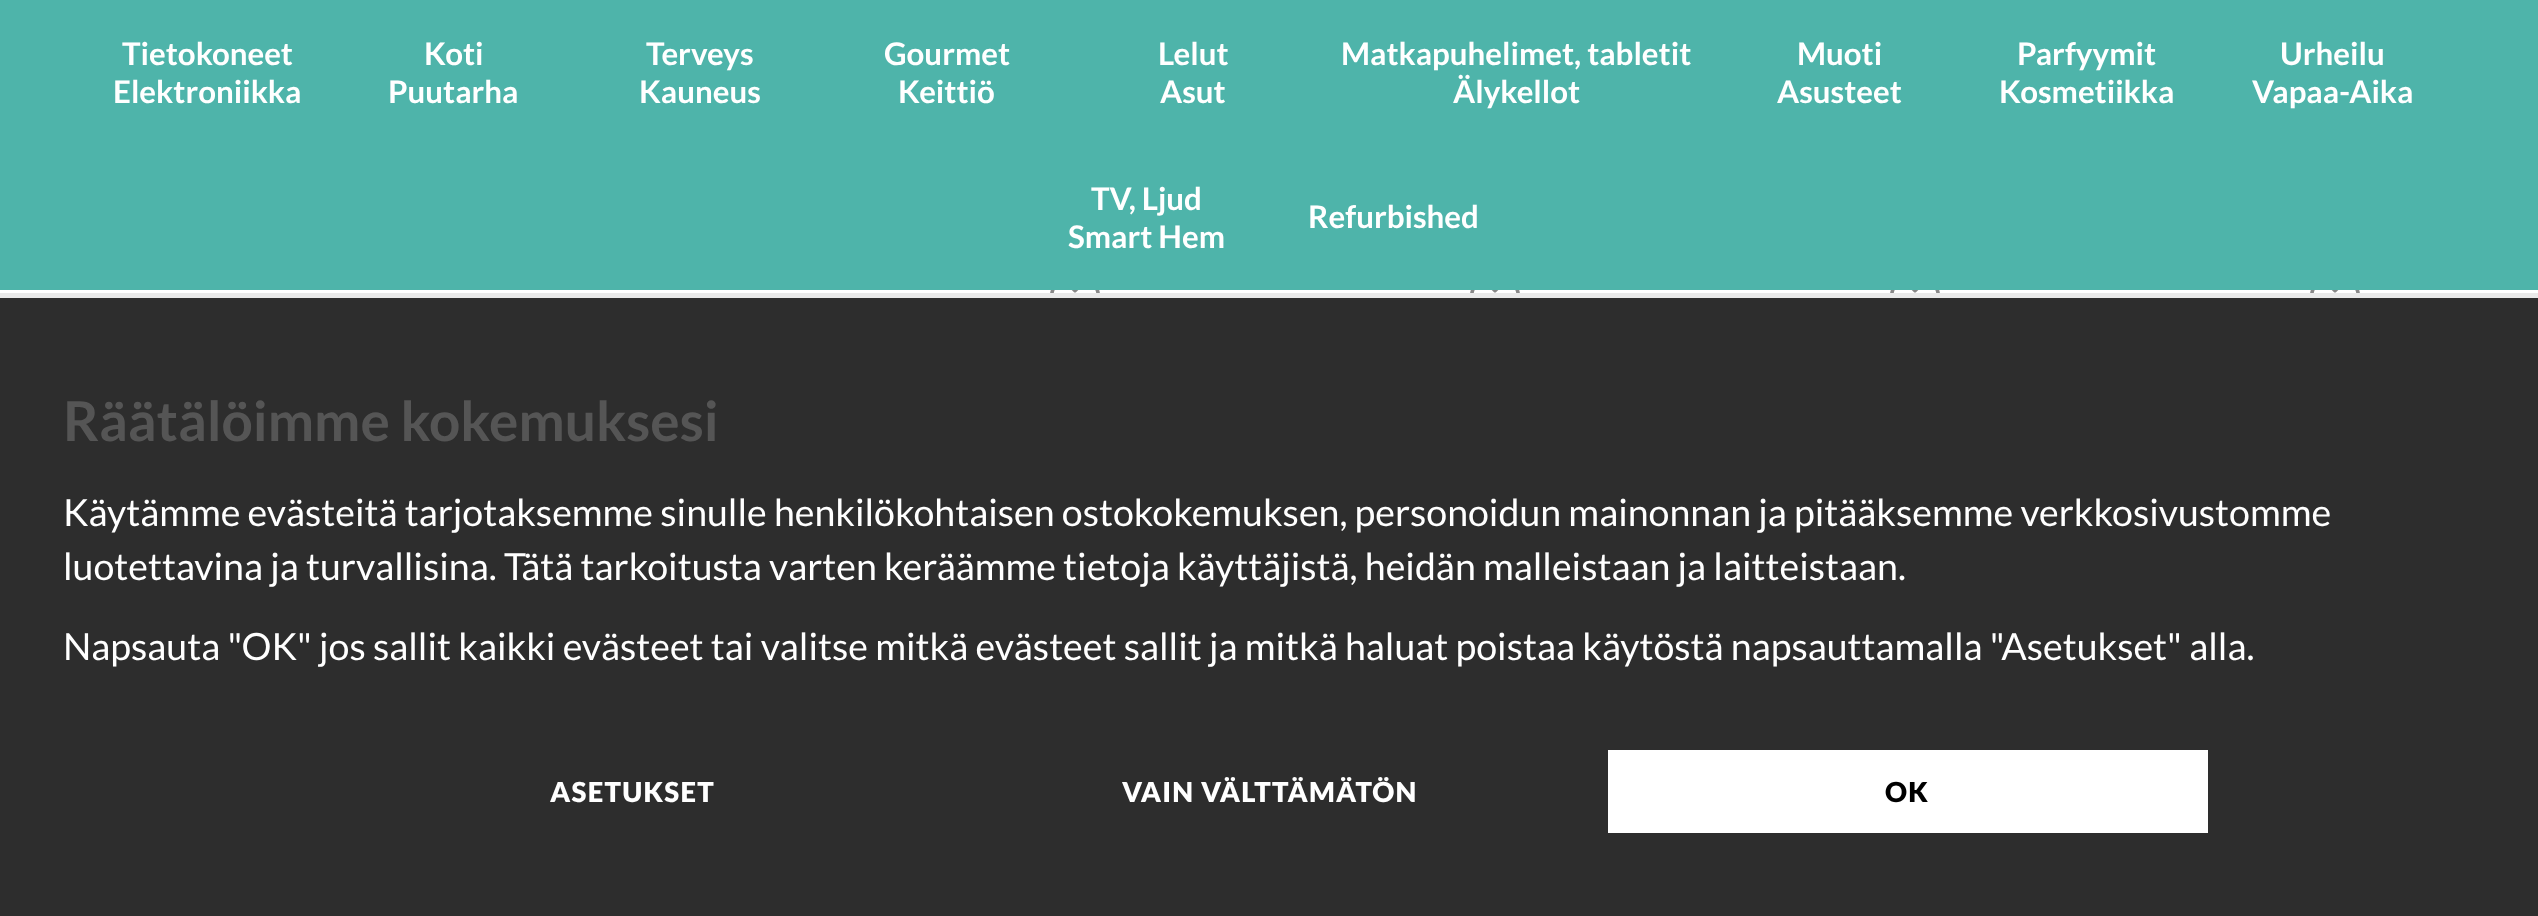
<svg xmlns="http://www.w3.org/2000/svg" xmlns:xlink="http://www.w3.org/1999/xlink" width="2538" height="916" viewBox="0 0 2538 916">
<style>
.cls-1{font:bold 31.25px Lato;fill:#ffffff}
.cls-2{font:bold 55px Lato;fill:#555555}
.cls-3{font:37.5px Lato;fill:#ffffff}
.cls-4{font:900 27.5px Lato;letter-spacing:1.25px;fill:#ffffff}
.cls-5{font:900 27.5px Lato;letter-spacing:1.25px;fill:#000000}
</style>
<rect width="100%" height="100%" fill="#ffffff"/>
<rect fill="#4eb4aa" x="0" y="0" width="2538" height="290"/>
<image xlink:href="image0.png" x="1050" y="290" width="50" height="3"/>
<image xlink:href="image0.png" x="1470" y="290" width="50" height="3"/>
<image xlink:href="image0.png" x="1890" y="290" width="50" height="3"/>
<image xlink:href="image0.png" x="2310" y="290" width="50" height="3"/>
<rect fill="#2d2d2d" x="0" y="298" width="2538" height="618"/>
<rect fill="#e9e9e9" x="0" y="293" width="2538" height="5"/>
<rect fill="#ffffff" x="1608" y="750" width="600" height="83"/>
<text class="cls-1" x="122" y="65">Tietokoneet</text>
<text class="cls-1" x="113" y="103">Elektroniikka</text>
<text class="cls-1" x="424" y="65">Koti</text>
<text class="cls-1" x="388" y="103">Puutarha</text>
<text class="cls-1" x="646" y="65">Terveys</text>
<text class="cls-1" x="639" y="103">Kauneus</text>
<text class="cls-1" x="884" y="65">Gourmet</text>
<text class="cls-1" x="898" y="103">Keittiö</text>
<text class="cls-1" x="1158" y="65">Lelut</text>
<text class="cls-1" x="1160" y="103">Asut</text>
<text class="cls-1" x="1341" y="65">Matkapuhelimet, tabletit</text>
<text class="cls-1" x="1453" y="103">Älykellot</text>
<text class="cls-1" x="1797" y="65">Muoti</text>
<text class="cls-1" x="1777" y="103">Asusteet</text>
<text class="cls-1" x="2017" y="65">Parfyymit</text>
<text class="cls-1" x="1999" y="103">Kosmetiikka</text>
<text class="cls-1" x="2280" y="65">Urheilu</text>
<text class="cls-1" x="2252" y="103">Vapaa-Aika</text>
<text class="cls-1" x="1091" y="210">TV, Ljud</text>
<text class="cls-1" x="1068" y="248">Smart Hem</text>
<text class="cls-1" x="1308" y="228">Refurbished</text>
<text class="cls-2" x="63" y="441">Räätälöimme kokemuksesi</text>
<text class="cls-3"><tspan x="63" y="526">Käytämme evästeitä tarjotaksemme sinulle henkilökohtaisen ostokokemuksen, personoidun mainonnan ja pitääksemme verkkosivustomme</tspan><tspan x="63" y="580">luotettavina ja turvallisina. Tätä tarkoitusta varten keräämme tietoja käyttäjistä, heidän malleistaan ja laitteistaan.</tspan></text>
<text class="cls-3" x="63" y="660">Napsauta "OK" jos sallit kaikki evästeet tai valitse mitkä evästeet sallit ja mitkä haluat poistaa käytöstä napsauttamalla "Asetukset" alla.</text>
<text class="cls-4" x="550" y="802">ASETUKSET</text>
<text class="cls-4" x="1122" y="802">VAIN VÄLTTÄMÄTÖN</text>
<text class="cls-5" x="1885" y="802">OK</text>
</svg>
